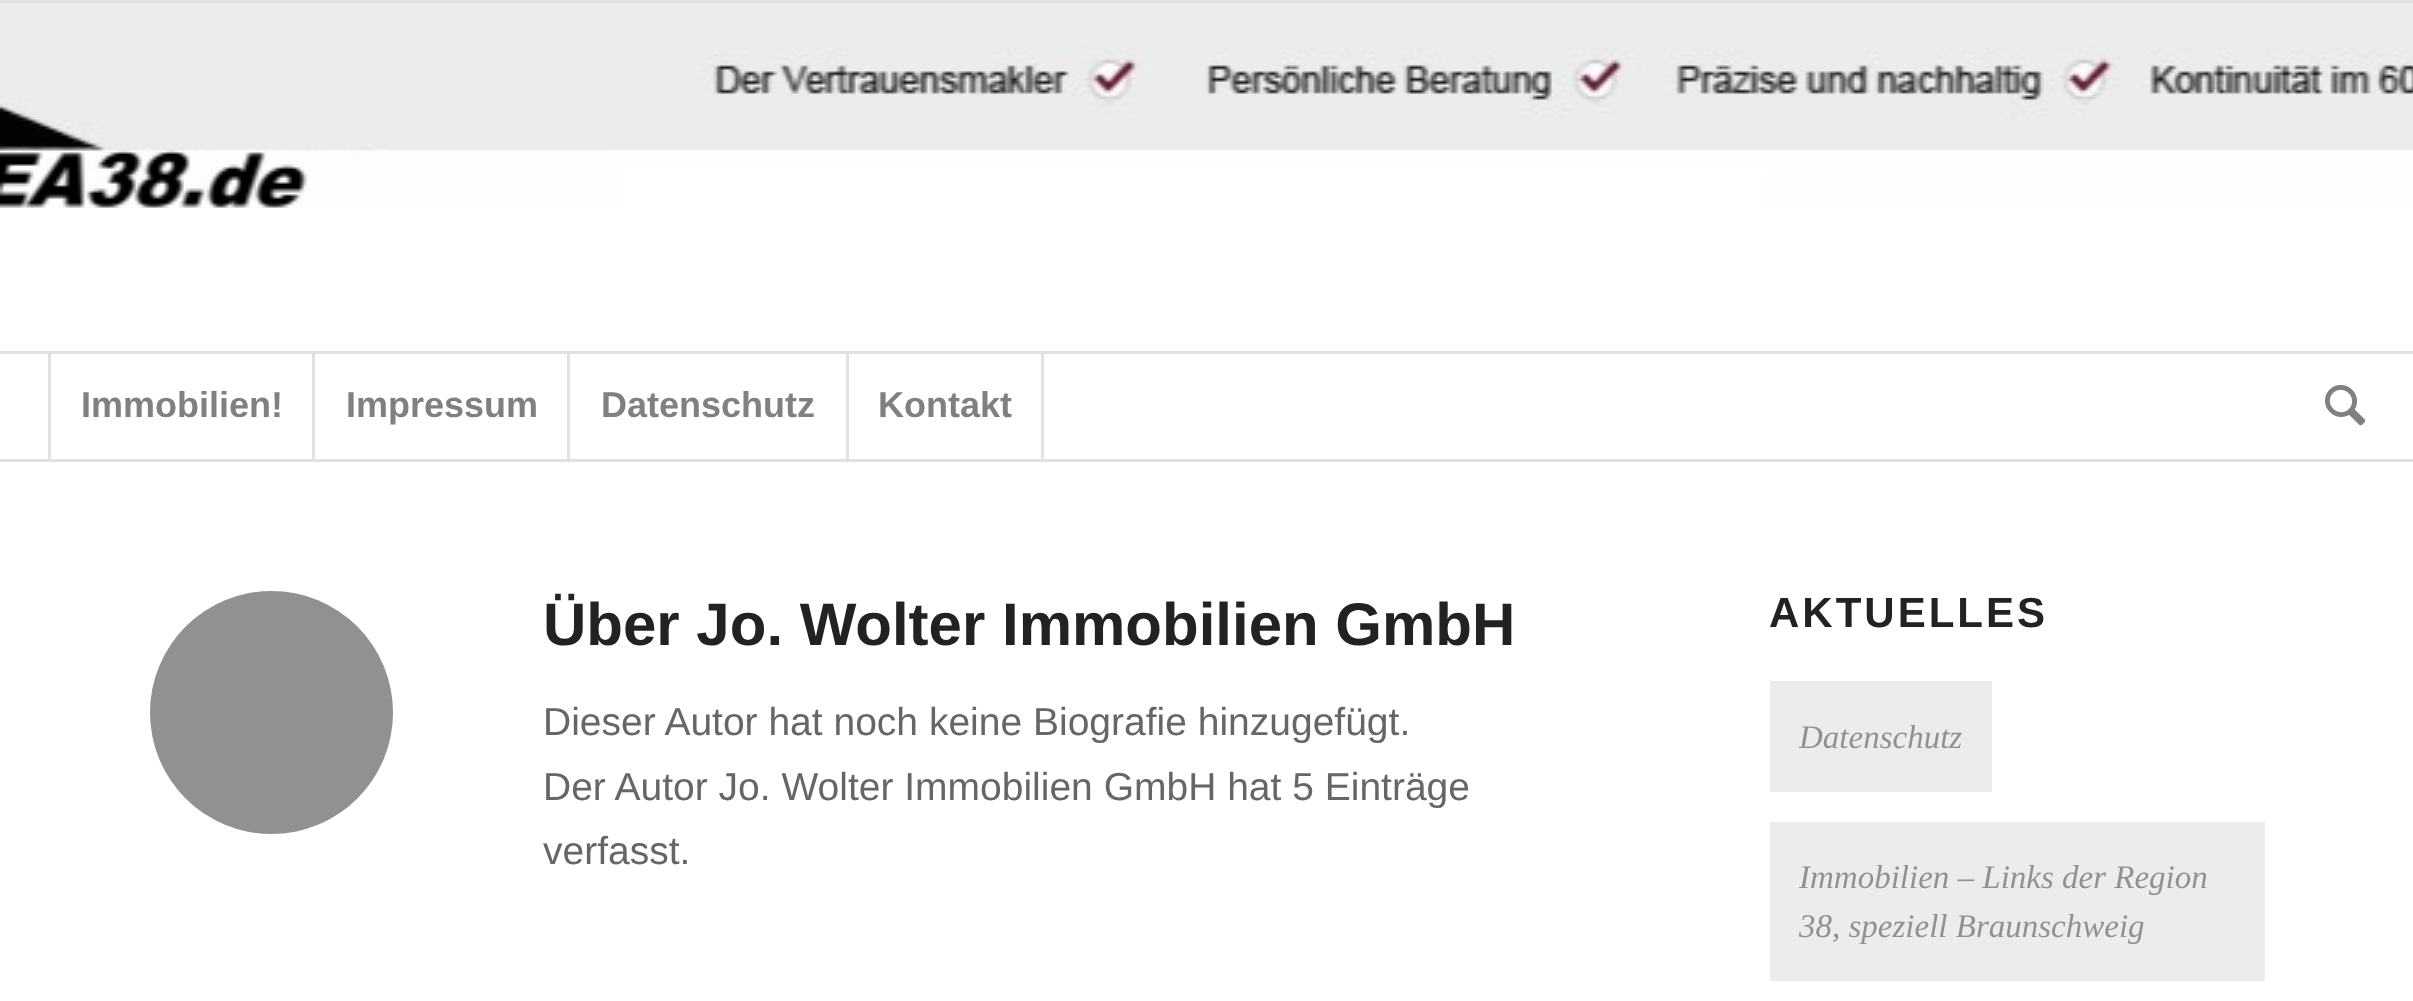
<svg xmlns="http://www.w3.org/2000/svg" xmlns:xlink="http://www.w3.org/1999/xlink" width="2413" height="1001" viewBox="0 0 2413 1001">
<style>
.cls-1{font:bold 36px Liberation Sans;fill:#808080}
.cls-2{font:bold 60px Liberation Sans;fill:#222222}
.cls-3{font:39px Liberation Sans;fill:#666666}
.cls-4{font:bold 42px Liberation Sans;letter-spacing:3px;fill:#222222}
.cls-5{font:italic 33px Liberation Serif;fill:#919191}
</style>
<rect width="100%" height="100%" fill="#ffffff"/>
<image xlink:href="image0.png" x="0" y="3" width="2413" height="205"/>
<rect fill="#e1e1e1" x="0" y="0" width="2413" height="3"/>
<rect fill="#e1e1e1" x="0" y="459" width="2413" height="3"/>
<rect fill="#e1e1e1" x="0" y="351" width="2413" height="3"/>
<rect fill="#e1e1e1" x="312" y="354" width="3" height="105"/>
<rect fill="#e1e1e1" x="48" y="354" width="3" height="105"/>
<rect fill="#e1e1e1" x="567" y="354" width="3" height="105"/>
<rect fill="#e1e1e1" x="846" y="354" width="3" height="105"/>
<rect fill="#e1e1e1" x="1041" y="354" width="3" height="105"/>
<image xlink:href="image1.png" x="2325" y="385" width="41" height="41"/>
<circle fill="#919191" cx="271.5" cy="712.5" r="121.5"/>
<rect fill="#ececec" x="1770" y="681" width="222" height="111"/>
<rect fill="#ececec" x="1770" y="822" width="495" height="159"/>
<text class="cls-1" x="81" y="417">Immobilien!</text>
<text class="cls-1" x="346" y="417">Impressum</text>
<text class="cls-1" x="601" y="417">Datenschutz</text>
<text class="cls-1" x="878" y="417">Kontakt</text>
<text class="cls-2" x="543" y="645">Über Jo. Wolter Immobilien GmbH</text>
<text class="cls-3"><tspan x="543" y="735">Dieser Autor hat noch keine Biografie hinzugefügt.</tspan><tspan x="543" y="800">Der Autor Jo. Wolter Immobilien GmbH hat 5 Einträge</tspan><tspan x="543" y="864">verfasst.</tspan></text>
<text class="cls-4" x="1769" y="627">AKTUELLES</text>
<text class="cls-5" x="1799" y="748">Datenschutz</text>
<text class="cls-5"><tspan x="1799" y="888">Immobilien – Links der Region</tspan><tspan x="1799" y="937">38, speziell Braunschweig</tspan></text>
</svg>
